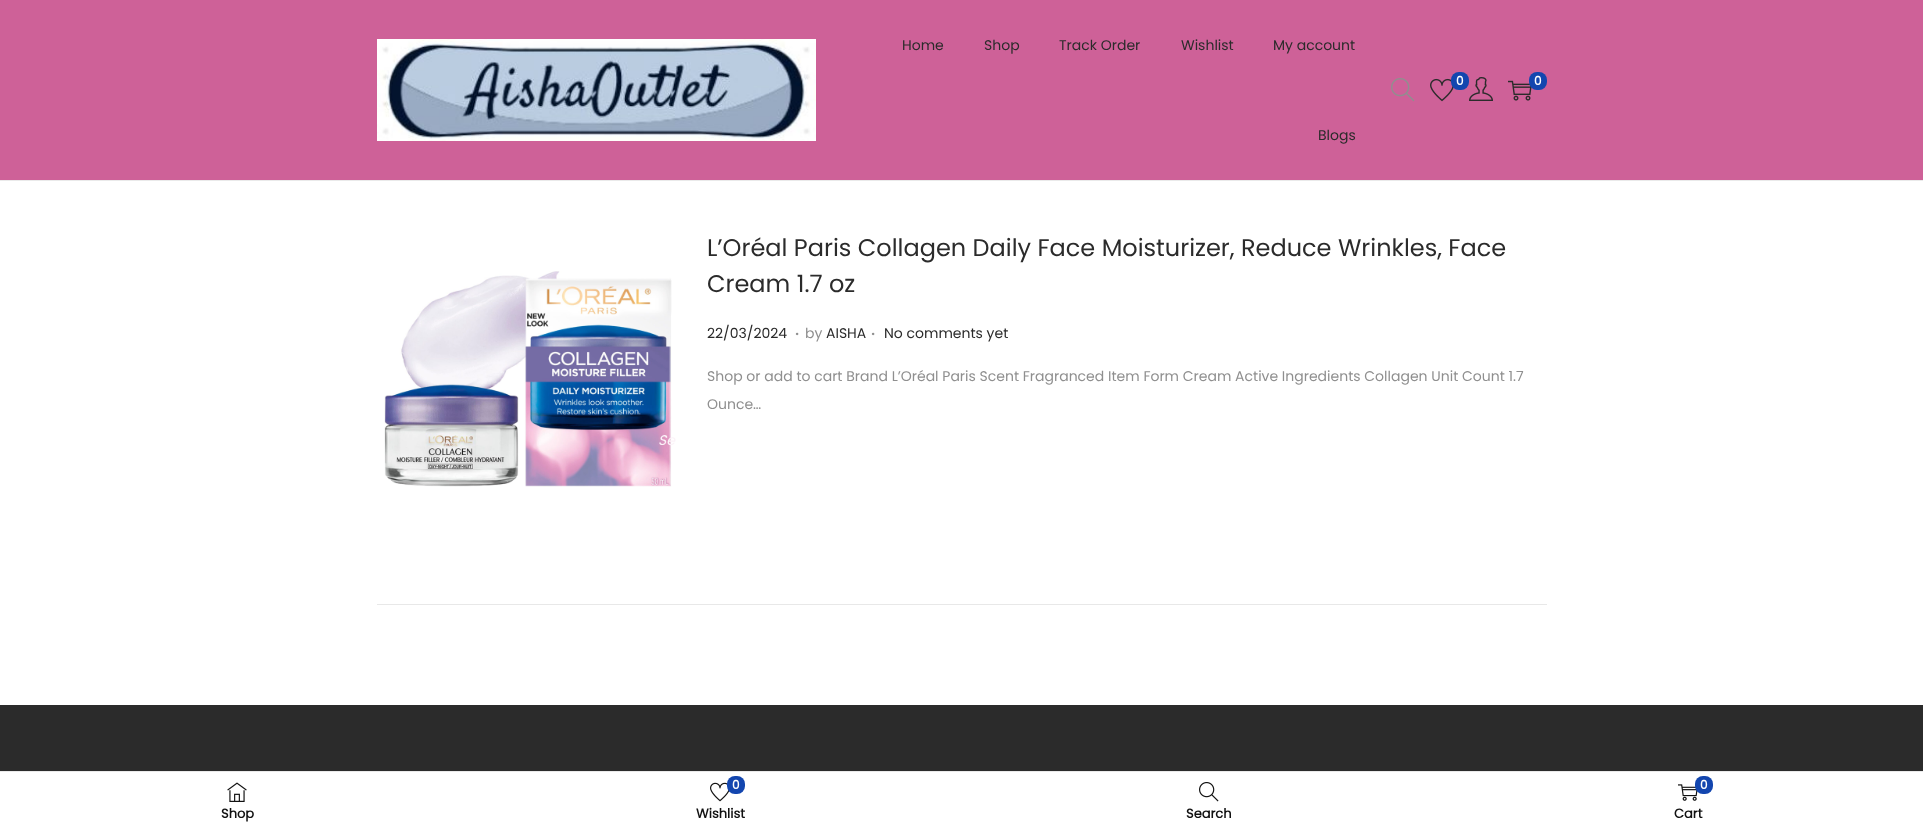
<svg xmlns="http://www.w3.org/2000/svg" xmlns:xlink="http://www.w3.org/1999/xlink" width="1923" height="830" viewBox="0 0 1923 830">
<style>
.cls-1{font:14px Poppins;fill:#2b2b2b}
.cls-2{font:bold 12px Poppins;fill:#ffffff}
.cls-3{font:24px Poppins;fill:#2b2b2b}
.cls-4{font:20px Poppins;fill:#8f8f8f}
.cls-5{font:14px Poppins;fill:#8f8f8f}
.cls-6{font:bold 13px Poppins;fill:#111111}
.cls-7{font:italic 14px Poppins;fill:#fbf3f8}
</style>
<rect width="100%" height="100%" fill="#ffffff"/>
<rect fill="#ce6198" x="0" y="0" width="1923" height="180"/>
<rect fill="#eaeaea" x="0" y="180" width="1923" height="1"/>
<image xlink:href="image0.png" x="377" y="39" width="439" height="102"/>
<image xlink:href="image1.png" x="1391" y="78" width="24" height="24"/>
<image xlink:href="image2.png" x="1430" y="78" width="24" height="24"/>
<rect fill="#1346af" x="1451" y="72" width="18" height="18" rx="8"/>
<image xlink:href="image3.png" x="1469" y="77" width="24" height="24"/>
<image xlink:href="image4.png" x="1508" y="80" width="24" height="21"/>
<rect fill="#1346af" x="1529" y="72" width="18" height="18" rx="8"/>
<rect fill="#e8e8e8" x="377" y="604" width="1170" height="1"/>
<image xlink:href="image5.png" x="384" y="271" width="288" height="216"/>
<rect fill="#2b2b2b" x="0" y="705" width="1923" height="66"/>
<rect fill="#eaeaea" x="0" y="771" width="1923" height="1"/>
<image xlink:href="image6.png" x="227" y="782" width="20" height="20"/>
<image xlink:href="image7.png" x="710" y="782" width="20" height="20"/>
<rect fill="#1346af" x="727" y="776" width="18" height="18" rx="8"/>
<image xlink:href="image8.png" x="1199" y="782" width="20" height="20"/>
<image xlink:href="image9.png" x="1678" y="784" width="20" height="17"/>
<rect fill="#1346af" x="1695" y="776" width="18" height="18" rx="8"/>
<text class="cls-1" x="902" y="50">Home</text>
<text class="cls-1" x="984" y="50">Shop</text>
<text class="cls-1" x="1059" y="50">Track Order</text>
<text class="cls-1" x="1181" y="50">Wishlist</text>
<text class="cls-1" x="1273" y="50">My account</text>
<text class="cls-1" x="1318" y="140">Blogs</text>
<text class="cls-2" x="1456" y="85">0</text>
<text class="cls-2" x="1534" y="85">0</text>
<text class="cls-3"><tspan x="707" y="256">L’Oréal Paris Collagen Daily Face Moisturizer, Reduce Wrinkles, Face</tspan><tspan x="707" y="292">Cream 1.7 oz</tspan></text>
<text class="cls-1" x="707" y="338">22/03/2024</text>
<text class="cls-4" x="795" y="335">.</text>
<text class="cls-5" x="805" y="338">by</text>
<text class="cls-1" x="826" y="338">AISHA</text>
<text class="cls-4" x="871" y="335">.</text>
<text class="cls-1" x="884" y="338">No comments yet</text>
<text class="cls-5" x="707" y="381">Shop or add to cart Brand L’Oréal Paris Scent Fragranced Item Form Cream Active Ingredients Collagen Unit Count 1.7</text>
<text class="cls-5" x="707" y="409">Ounce…</text>
<text class="cls-6" x="221" y="818">Shop</text>
<text class="cls-2" x="732" y="789">0</text>
<text class="cls-6" x="696" y="818">Wishlist</text>
<text class="cls-6" x="1186" y="818">Search</text>
<text class="cls-2" x="1700" y="789">0</text>
<text class="cls-6" x="1674" y="818">Cart</text>
<text class="cls-7" x="658" y="445">Se</text>
</svg>
